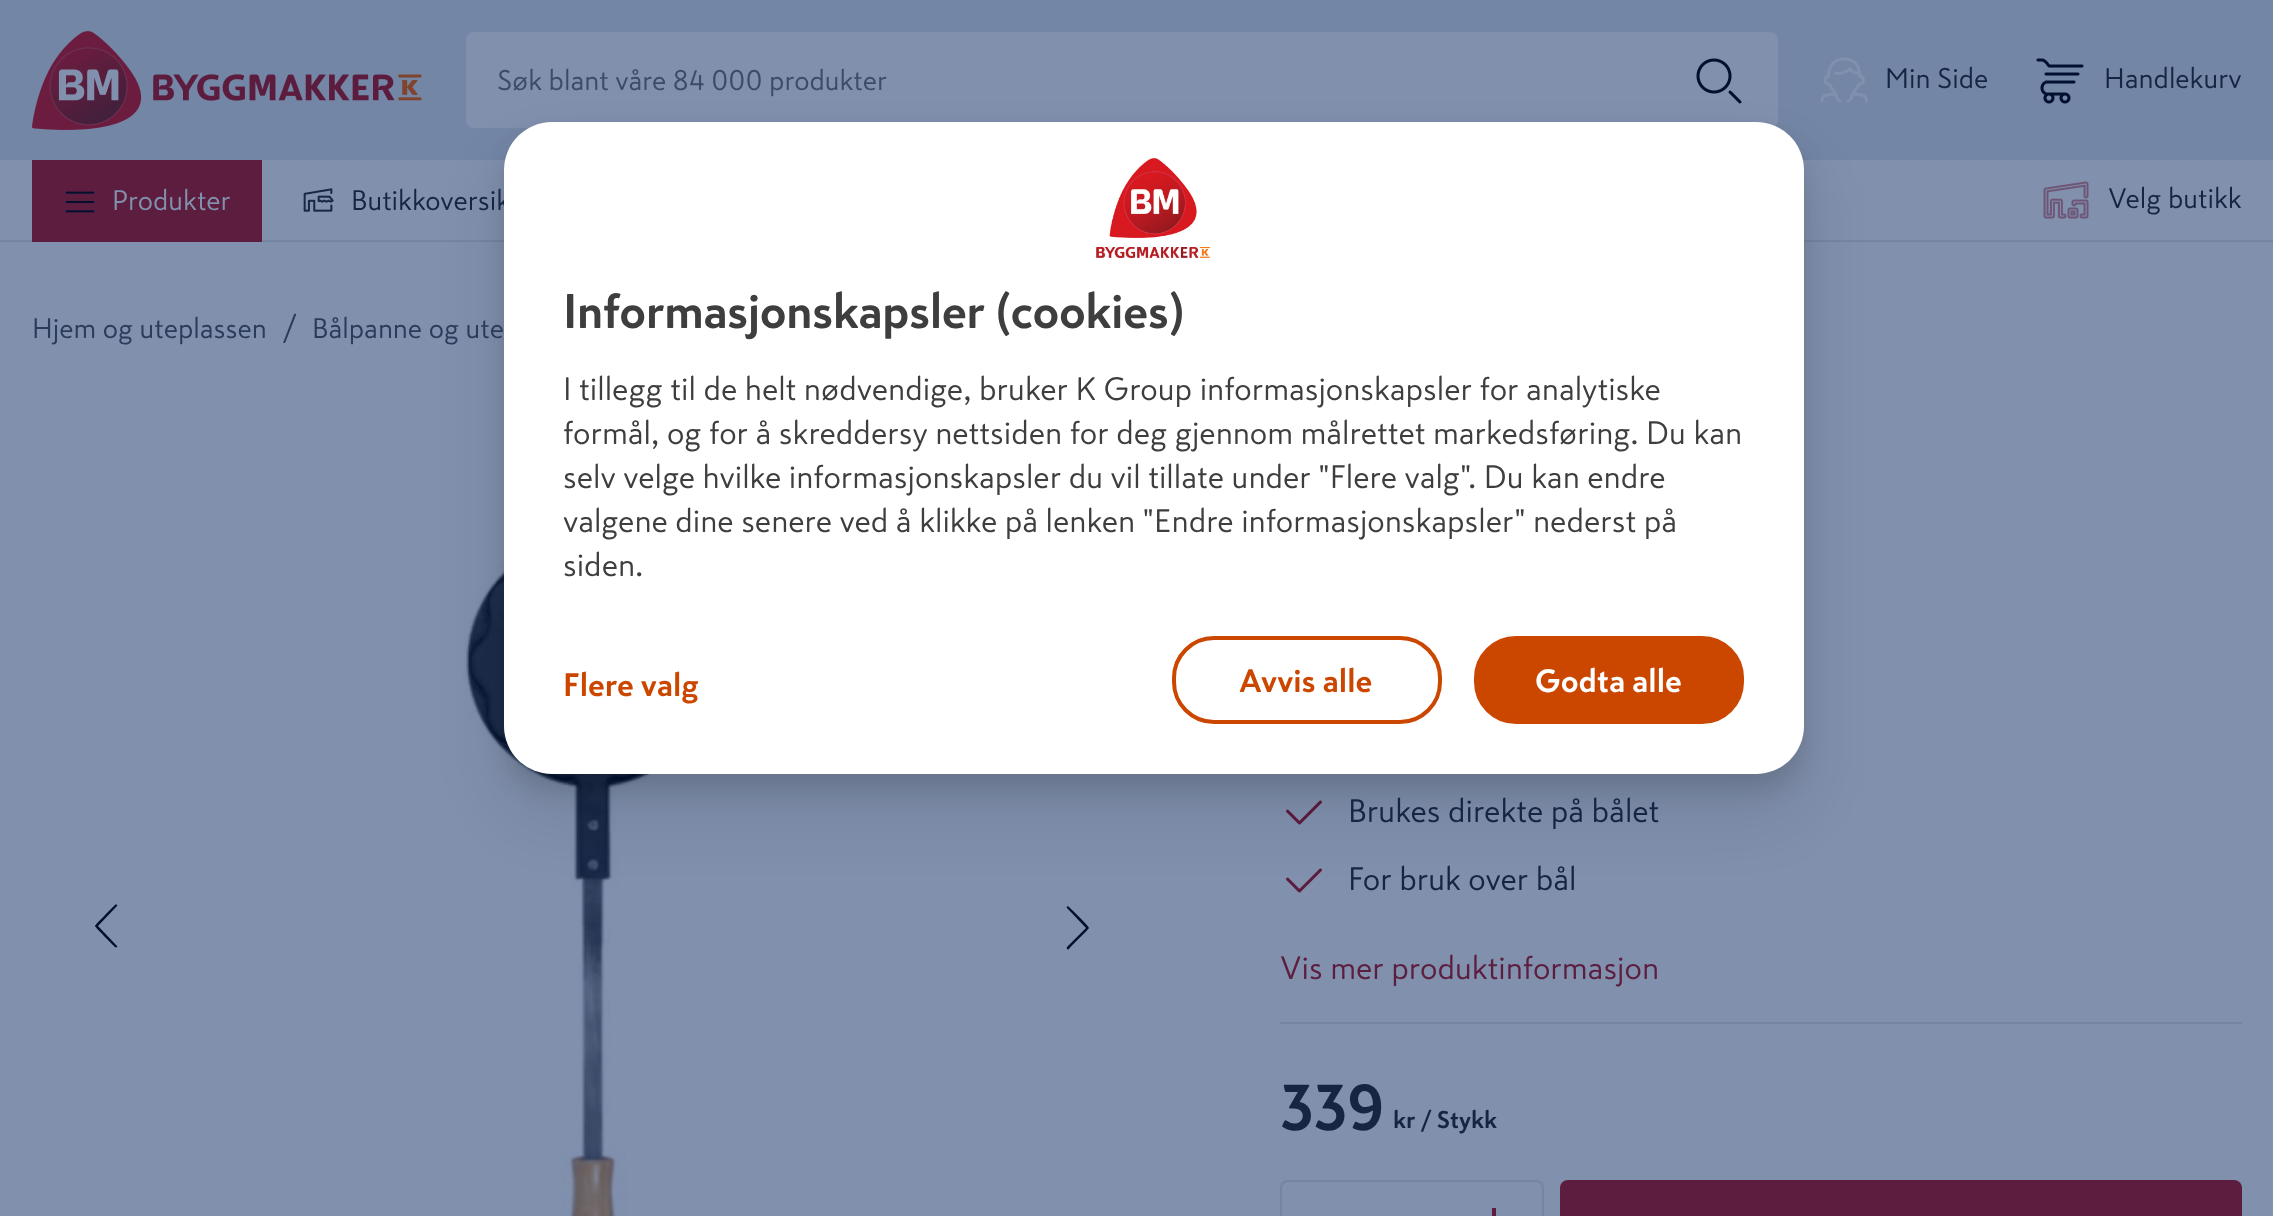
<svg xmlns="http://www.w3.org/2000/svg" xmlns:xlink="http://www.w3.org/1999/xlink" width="2273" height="1216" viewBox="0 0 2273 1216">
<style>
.cls-1{font:28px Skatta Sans;fill:#3b4b68}
.cls-2{font:28px Skatta Sans;fill:#152542}
.cls-3{font:28px Skatta Sans;fill:#8090ad}
.cls-4{font:28px Skatta Sans;fill:#2a3c5b}
.cls-5{font:32px Skatta Sans;fill:#2a3c5b}
.cls-6{font:32px Skatta Sans;fill:#152542}
.cls-7{font:32px Skatta Sans;fill:#5c1d3e}
.cls-8{font:bold 64px Skatta Sans;fill:#152542}
.cls-9{font:bold 24px Skatta Sans;fill:#152542}
.cls-10{font:bold 48px Skatta Sans;letter-spacing:-0.5px;fill:#3e3e3e}
.cls-11{font:32px Skatta Sans;fill:#3e3e3e}
.cls-12{font:bold 32px Skatta Sans;fill:#cb4700}
.cls-13{font:bold 32px Skatta Sans;fill:#ffffff}
</style>
<rect width="100%" height="100%" fill="#8090ad"/>
<rect fill="#7386a5" x="0" y="0" width="2273" height="160"/>
<image xlink:href="image0.png" x="32" y="31" width="390" height="99"/>
<path fill="#8090ad" d="M474 32H1662V128H474C469.5 128 466 124.5 466 120V40C466 35.5 469.5 32 474 32Z"/>
<path fill="#8090ad" d="M1662 32H1770C1774.5 32 1778 35.5 1778 40V120C1778 124.5 1774.5 128 1770 128H1662Z"/>
<image xlink:href="image1.png" x="1696" y="58" width="46" height="46"/>
<image xlink:href="image2.png" x="1820" y="57" width="48" height="46"/>
<image xlink:href="image3.png" x="2036" y="58" width="48" height="46"/>
<rect fill="#7585a3" x="0" y="240" width="2273" height="2"/>
<rect fill="#5c1d3e" x="32" y="160" width="230" height="82"/>
<image xlink:href="image4.png" x="65" y="191" width="30" height="22"/>
<image xlink:href="image5.png" x="303" y="188" width="31" height="24"/>
<image xlink:href="image6.png" x="2043" y="181" width="46" height="38"/>
<path fill="#00102e" d="M98 926L117 946C118 947 116 948 115 947C113 945 95 927 95 926C95 925 113 907 115 905C116 904 118 905 117 906Z"/>
<image xlink:href="image7.png" x="463" y="478" width="257" height="738"/>
<path fill="#00102e" d="M1086 928L1067 908C1066 906 1068 906 1069 907C1071 909 1089 926 1089 928C1089 929 1071 946 1069 949C1068 950 1066 949 1067 947Z"/>
<image xlink:href="image8.png" x="1286" y="800" width="36" height="25"/>
<image xlink:href="image8.png" x="1286" y="868" width="36" height="25"/>
<rect fill="#7484a1" x="1280" y="1022" width="962" height="2"/>
<rect fill="none" stroke="#7484a1" stroke-width="2" x="1281" y="1181" width="262" height="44" rx="7"/>
<rect fill="#5c1d3e" x="1492" y="1208" width="4" height="8"/>
<rect fill="#5c1d3e" x="1560" y="1180" width="682" height="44" rx="8"/>
<rect fill="#000000" fill-opacity="0.08" filter="blur(32px)" x="500" y="158" width="1308" height="660" rx="52"/>
<rect fill="#000000" fill-opacity="0.12" filter="blur(12px)" x="504" y="138" width="1300" height="652" rx="48"/>
<text class="cls-1" x="497" y="90">Søk blant våre 84 000 produkter</text>
<text class="cls-2" x="1885" y="88">Min Side</text>
<text class="cls-2" x="2104" y="88">Handlekurv</text>
<text class="cls-3" x="112" y="210">Produkter</text>
<text class="cls-2" x="351" y="210">Butikkoversik</text>
<text class="cls-2" x="2108" y="208">Velg butikk</text>
<text class="cls-4" x="32" y="338">Hjem og uteplassen</text>
<text class="cls-5" x="283" y="338">/</text>
<text class="cls-4" x="312" y="338">Bålpanne og ute</text>
<text class="cls-6" x="1348" y="822">Brukes direkte på bålet</text>
<text class="cls-6" x="1348" y="890">For bruk over bål</text>
<text class="cls-7" x="1280" y="979">Vis mer produktinformasjon</text>
<text class="cls-8" x="1280" y="1130">339</text>
<text class="cls-9" x="1393" y="1128">kr / Stykk</text>
<rect fill="#ffffff" x="504" y="122" width="1300" height="652" rx="48"/>
<image xlink:href="image9.png" x="1096" y="158" width="114" height="100"/>
<text class="cls-10" x="563" y="328">Informasjonskapsler (cookies)</text>
<text class="cls-11"><tspan x="563" y="400">I tillegg til de helt nødvendige, bruker K Group informasjonskapsler for analytiske</tspan><tspan x="563" y="444">formål, og for å skreddersy nettsiden for deg gjennom målrettet markedsføring. Du kan</tspan><tspan x="563" y="488">selv velge hvilke informasjonskapsler du vil tillate under "Flere valg". Du kan endre</tspan><tspan x="563" y="532">valgene dine senere ved å klikke på lenken "Endre informasjonskapsler" nederst på</tspan><tspan x="563" y="576">siden.</tspan></text>
<text class="cls-12" x="563" y="696">Flere valg</text>
<rect fill="none" stroke="#cb4700" stroke-width="4" x="1174" y="638" width="266" height="84" rx="40"/>
<text class="cls-12" x="1239" y="692">Avvis alle</text>
<rect fill="#cb4700" stroke="#cb4700" stroke-width="4" x="1476" y="638" width="266" height="84" rx="40"/>
<text class="cls-13" x="1535" y="692">Godta alle</text>
</svg>
